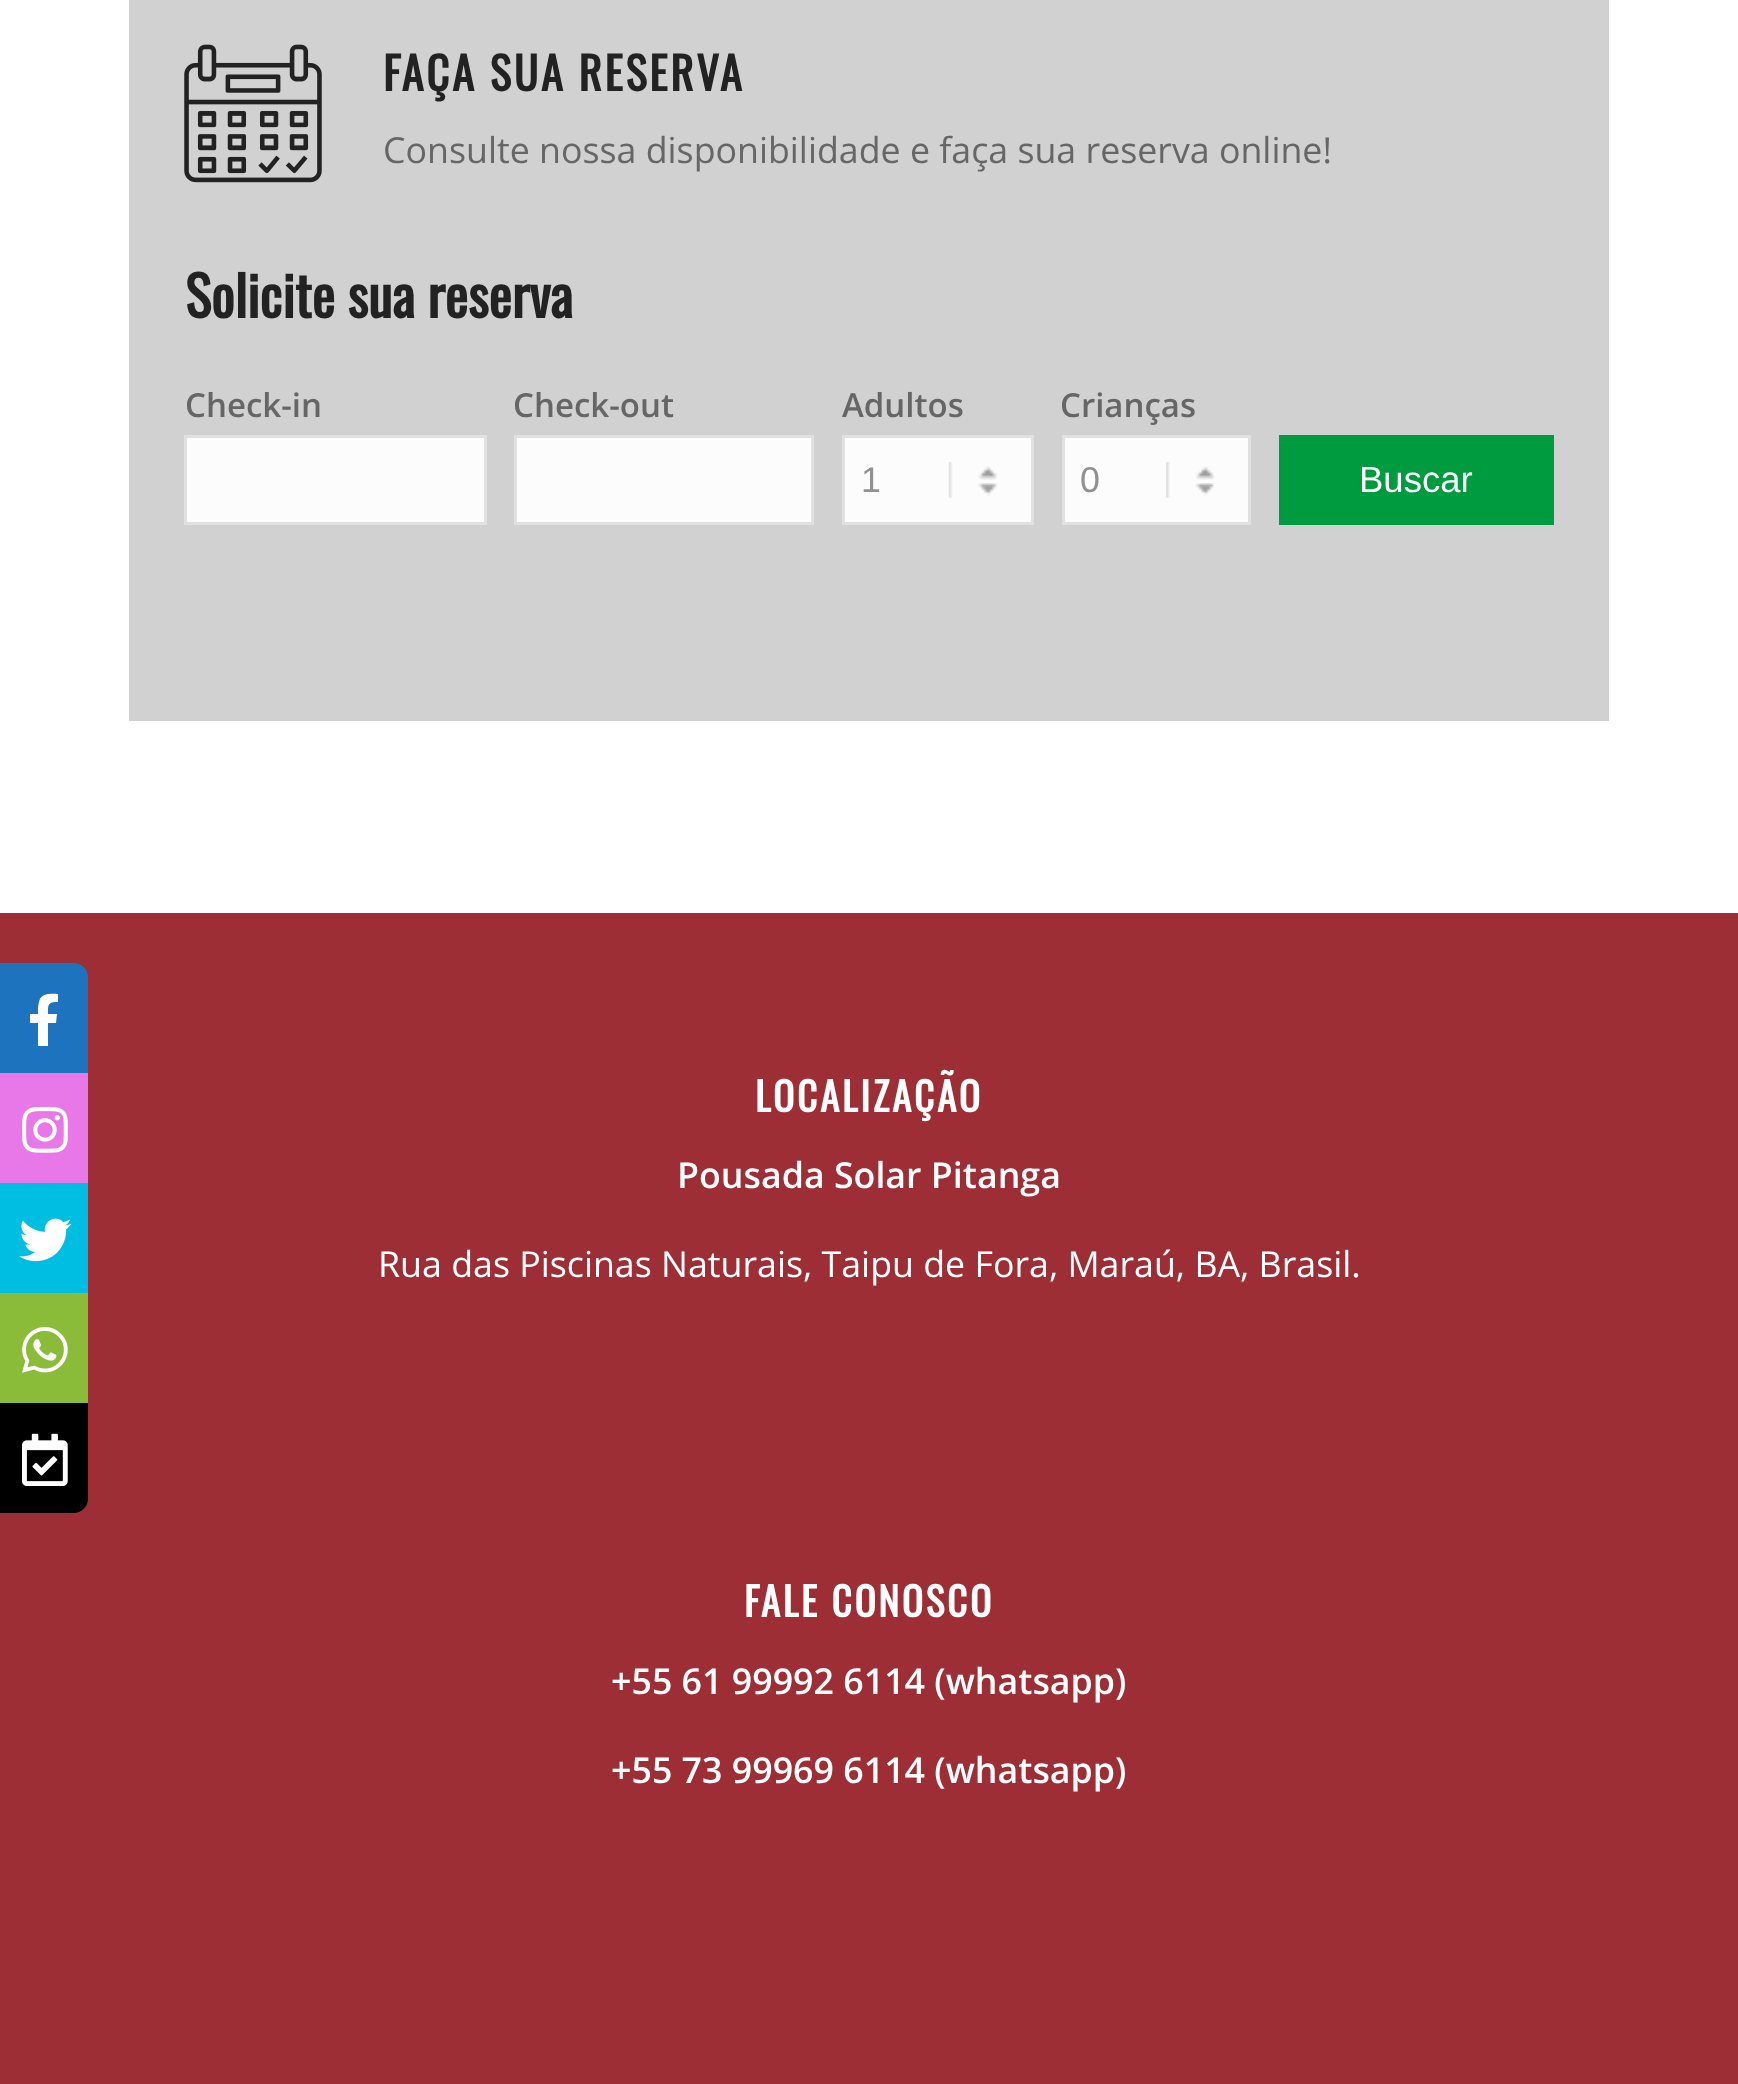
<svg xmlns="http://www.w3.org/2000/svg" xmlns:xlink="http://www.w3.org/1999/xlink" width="1738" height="2084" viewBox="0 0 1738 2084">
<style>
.cls-1{font:bold 44.75px Oswald;letter-spacing:2.75px;fill:#222222}
.cls-2{font:35.75px Open Sans;fill:#666666}
.cls-3{font:bold 55px Oswald;fill:#222222}
.cls-4{font:600 33px Open Sans;fill:#666666}
.cls-5{font:35.75px Liberation Sans;fill:#919191}
.cls-6{font:36.5px Liberation Sans;fill:#ffffff}
.cls-7{font:bold 39.25px Oswald;letter-spacing:2.75px;fill:#ffffff}
.cls-8{font:600 35.75px Open Sans;fill:#ffffff}
.cls-9{font:35.75px Open Sans;fill:#ffffff}
</style>
<rect width="100%" height="100%" fill="#ffffff"/>
<rect fill="#9e2e35" x="0" y="913" width="1738" height="1171"/>
<path fill="#1e73be" d="M0 963H74C81.5 963 88 969.5 88 977V1073H0Z"/>
<path fill="#ffffff" d="M56 1023H48V1046H38V1023H30V1014H38C38 996 41 993 58 994V1002C48 1002 48 1004 48 1014H57Z"/>
<rect fill="#e878e8" x="0" y="1073" width="88" height="110"/>
<image xlink:href="image0.png" x="22" y="1107" width="46" height="46"/>
<rect fill="#00bde2" x="0" y="1183" width="88" height="110"/>
<image xlink:href="image1.png" x="19" y="1218" width="53" height="44"/>
<rect fill="#8abc3a" x="0" y="1293" width="88" height="110"/>
<image xlink:href="image2.png" x="22" y="1327" width="46" height="46"/>
<path fill="#000000" d="M0 1403H88V1499C88 1506.5 81.5 1513 74 1513H0Z"/>
<image xlink:href="image3.png" x="22" y="1433" width="46" height="53"/>
<rect fill="#d1d1d1" x="129" y="0" width="1480" height="721"/>
<image xlink:href="image4.png" x="184" y="44" width="138" height="139"/>
<rect fill="#fcfcfc" stroke="#e1e1e1" stroke-width="3" x="185.5" y="436.5" width="300" height="87"/>
<rect fill="#fcfcfc" stroke="#e1e1e1" stroke-width="3" x="515.5" y="436.5" width="297" height="87"/>
<rect fill="#fcfcfc" x="845" y="438" width="186" height="84"/>
<image xlink:href="image5.png" x="948" y="462" width="50" height="36"/>
<rect fill="none" stroke="#e1e1e1" stroke-width="3" x="843.5" y="436.5" width="189" height="87"/>
<rect fill="#fcfcfc" x="1065" y="438" width="183" height="84"/>
<image xlink:href="image6.png" x="1166" y="462" width="49" height="36"/>
<rect fill="none" stroke="#e1e1e1" stroke-width="3" x="1063.5" y="436.5" width="186" height="87"/>
<rect fill="#009b3e" x="1279" y="435" width="275" height="90"/>
<text class="cls-1" x="383" y="91">FAÇA SUA RESERVA</text>
<text class="cls-2" x="383" y="163">Consulte nossa disponibilidade e faça sua reserva online!</text>
<text class="cls-3" x="185" y="318">Solicite sua reserva</text>
<text class="cls-4" x="185" y="417">Check-in</text>
<text class="cls-4" x="513" y="417">Check-out</text>
<text class="cls-4" x="842" y="417">Adultos</text>
<text class="cls-5" x="861" y="492">1</text>
<text class="cls-4" x="1060" y="417">Crianças</text>
<text class="cls-5" x="1080" y="492">0</text>
<text class="cls-6" x="1359" y="492">Buscar</text>
<text class="cls-7" x="755" y="1112">LOCALIZAÇÃO</text>
<text class="cls-8" x="677" y="1188">Pousada Solar Pitanga</text>
<text class="cls-9" x="378" y="1277">Rua das Piscinas Naturais, Taipu de Fora, Maraú, BA, Brasil.</text>
<text class="cls-7" x="744" y="1617">FALE CONOSCO</text>
<text class="cls-8" x="611" y="1694">+55 61 99992 6114 (whatsapp)</text>
<text class="cls-8" x="611" y="1783">+55 73 99969 6114 (whatsapp)</text>
</svg>
